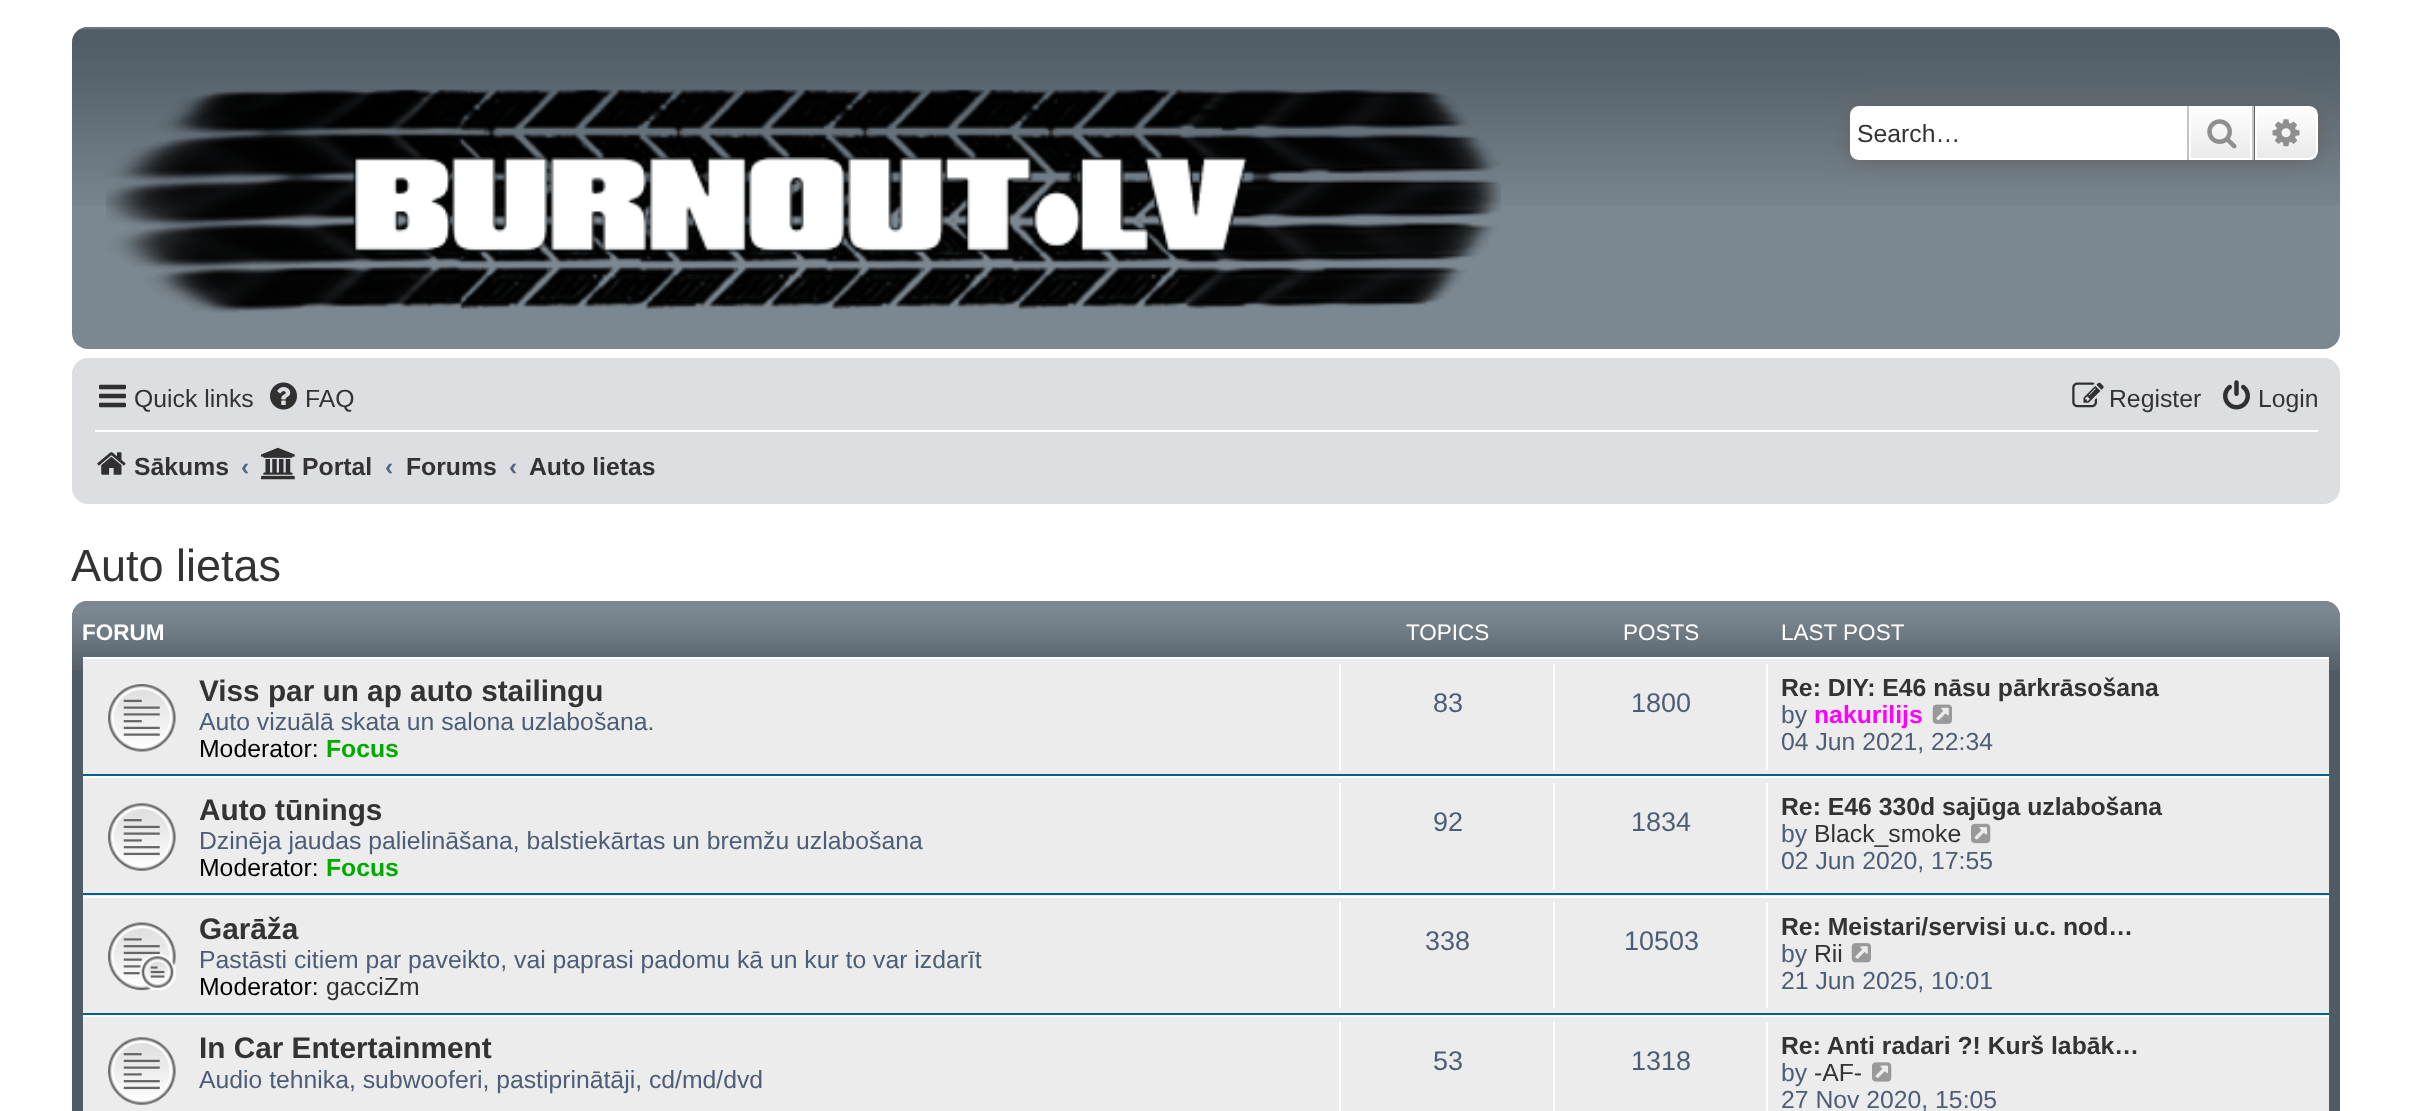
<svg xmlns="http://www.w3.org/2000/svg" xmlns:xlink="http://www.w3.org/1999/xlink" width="2411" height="1111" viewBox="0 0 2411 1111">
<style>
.cls-1{font:24.75px Liberation Sans;fill:#333333}
.cls-2{font:bold 24.75px Liberation Sans;fill:#333333}
.cls-3{font:bold 24.75px Liberation Sans;fill:#536482}
.cls-4{font:45px Liberation Sans;fill:#333333}
.cls-5{font:bold 22.5px Liberation Sans;fill:#ffffff}
.cls-6{font:22.5px Liberation Sans;fill:#ffffff}
.cls-7{font:bold 29.75px Liberation Sans;fill:#333333}
.cls-8{font:24.75px Liberation Sans;fill:#4c5d77}
.cls-9{font:24.75px Liberation Sans;fill:#000000}
.cls-10{font:bold 24.75px Liberation Sans;fill:#00aa00}
.cls-11{font:27px Liberation Sans;fill:#4c5d77}
.cls-12{font:bold 24.75px Liberation Sans;fill:#ff00ff}
</style>
<defs>
<linearGradient id="g1" gradientUnits="userSpaceOnUse" x1="2221" y1="106" x2="2221" y2="160"><stop offset="0" stop-color="#ffffff"/><stop offset="1" stop-color="#e9e9e9"/></linearGradient>
<linearGradient id="g2" gradientUnits="userSpaceOnUse" x1="2286" y1="106" x2="2286" y2="160"><stop offset="0" stop-color="#ffffff"/><stop offset="1" stop-color="#e9e9e9"/></linearGradient>
</defs>
<rect width="100%" height="100%" fill="#ffffff"/>
<rect fill="#7c8891" x="72" y="27" width="2268" height="322" rx="16"/>
<image xlink:href="image0.png" x="72" y="27" width="2268" height="178"/>
<image xlink:href="image1.png" x="106" y="89" width="1395" height="224"/>
<rect fill="#636363" filter="blur(11px)" x="1850" y="106" width="468" height="54" rx="9"/>
<path fill="#ffffff" d="M1859 106H2187V160H1859C1854 160 1850 156 1850 151V115C1850 110 1854 106 1859 106Z"/>
<rect fill="url(#g1)" x="2191" y="108" width="59" height="50"/>
<rect fill="none" stroke="#ffffff" stroke-width="2" x="2190" y="107" width="61" height="52"/>
<rect fill="#c7c3bf" x="2252" y="106" width="2" height="54"/>
<rect fill="#c7c3bf" x="2187" y="106" width="2" height="54"/>
<image xlink:href="image2.png" x="2207" y="119" width="30" height="30"/>
<path fill="url(#g2)" stroke="#ffffff" stroke-width="2" d="M2256 107H2309C2313.5 107 2317 110.5 2317 115V151C2317 155.5 2313.5 159 2309 159H2256Z"/>
<image xlink:href="image3.png" x="2272" y="119" width="28" height="28"/>
<rect fill="#dcdee2" x="72" y="358" width="2268" height="146" rx="16"/>
<image xlink:href="image4.png" x="99" y="384" width="27" height="24"/>
<image xlink:href="image5.png" x="270" y="382" width="27" height="28"/>
<image xlink:href="image6.png" x="2072" y="382" width="32" height="26"/>
<image xlink:href="image7.png" x="2223" y="380" width="27" height="30"/>
<rect fill="#ffffff" x="95" y="430" width="2223" height="2"/>
<image xlink:href="image8.png" x="97" y="452" width="29" height="23"/>
<image xlink:href="image9.png" x="261" y="447" width="34" height="33"/>
<rect fill="#505c65" x="72" y="601" width="2268" height="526" rx="16"/>
<image xlink:href="image10.png" x="72" y="600" width="2268" height="71"/>
<rect fill="#ececec" x="83" y="659" width="2246" height="115"/>
<rect fill="#ffffff" x="83" y="657" width="2246" height="2"/>
<rect fill="#00608f" x="83" y="774" width="2246" height="2"/>
<image xlink:href="image11.png" x="108" y="684" width="68" height="68"/>
<rect fill="#ffffff" x="1339" y="664" width="2" height="106"/>
<rect fill="#ffffff" x="1553" y="664" width="2" height="106"/>
<rect fill="#ffffff" x="1766" y="664" width="2" height="106"/>
<image xlink:href="image12.png" x="1932" y="704" width="20" height="20"/>
<rect fill="#ececec" x="83" y="778" width="2246" height="118"/>
<rect fill="#ffffff" x="83" y="776" width="2246" height="2"/>
<rect fill="#00608f" x="83" y="893" width="2246" height="2"/>
<image xlink:href="image13.png" x="108" y="803" width="68" height="68"/>
<rect fill="#ffffff" x="1339" y="783" width="2" height="106"/>
<rect fill="#ffffff" x="1553" y="783" width="2" height="106"/>
<rect fill="#ffffff" x="1766" y="783" width="2" height="106"/>
<image xlink:href="image14.png" x="1971" y="823" width="20" height="21"/>
<rect fill="#ececec" x="83" y="898" width="2246" height="115"/>
<rect fill="#ffffff" x="83" y="896" width="2246" height="2"/>
<rect fill="#00608f" x="83" y="1013" width="2246" height="2"/>
<image xlink:href="image15.png" x="108" y="922" width="68" height="69"/>
<rect fill="#ffffff" x="1339" y="902" width="2" height="106"/>
<rect fill="#ffffff" x="1553" y="902" width="2" height="106"/>
<rect fill="#ffffff" x="1766" y="902" width="2" height="106"/>
<image xlink:href="image16.png" x="1851" y="943" width="20" height="20"/>
<rect fill="#ececec" x="83" y="1017" width="2246" height="94"/>
<rect fill="#ffffff" x="83" y="1015" width="2246" height="2"/>
<image xlink:href="image17.png" x="108" y="1037" width="68" height="68"/>
<rect fill="#ffffff" x="1339" y="1022" width="2" height="89"/>
<rect fill="#ffffff" x="1553" y="1022" width="2" height="89"/>
<rect fill="#ffffff" x="1766" y="1022" width="2" height="89"/>
<image xlink:href="image18.png" x="1872" y="1062" width="20" height="20"/>
<text class="cls-1" x="1857" y="142">Search…</text>
<text class="cls-1" x="134" y="407">Quick links</text>
<text class="cls-1" x="305" y="407">FAQ</text>
<text class="cls-1" x="2109" y="407">Register</text>
<text class="cls-1" x="2258" y="407">Login</text>
<text class="cls-2" x="134" y="475">Sākums</text>
<text class="cls-3" x="241" y="475">‹</text>
<text class="cls-2" x="302" y="475">Portal</text>
<text class="cls-3" x="385" y="475">‹</text>
<text class="cls-2" x="406" y="475">Forums</text>
<text class="cls-3" x="509" y="475">‹</text>
<text class="cls-2" x="529" y="475">Auto lietas</text>
<text class="cls-4" x="71" y="581">Auto lietas</text>
<text class="cls-5" x="82" y="640">FORUM</text>
<text class="cls-6" x="1406" y="640">TOPICS</text>
<text class="cls-6" x="1623" y="640">POSTS</text>
<text class="cls-6" x="1781" y="640">LAST POST</text>
<text class="cls-7" x="199" y="701">Viss par un ap auto stailingu</text>
<text class="cls-8" x="199" y="730">Auto vizuālā skata un salona uzlabošana.</text>
<text class="cls-9" x="199" y="757">Moderator:</text>
<text class="cls-10" x="326" y="757">Focus</text>
<text class="cls-11" x="1433" y="712">83</text>
<text class="cls-11" x="1631" y="712">1800</text>
<text class="cls-2" x="1781" y="696">Re: DIY: E46 nāsu pārkrāsošana</text>
<text class="cls-8" x="1781" y="723">by</text>
<text class="cls-12" x="1814" y="723">nakurilijs</text>
<text class="cls-8" x="1781" y="750">04 Jun 2021, 22:34</text>
<text class="cls-7" x="199" y="820">Auto tūnings</text>
<text class="cls-8" x="199" y="849">Dzinēja jaudas palielināšana, balstiekārtas un bremžu uzlabošana</text>
<text class="cls-9" x="199" y="876">Moderator:</text>
<text class="cls-10" x="326" y="876">Focus</text>
<text class="cls-11" x="1433" y="831">92</text>
<text class="cls-11" x="1631" y="831">1834</text>
<text class="cls-2" x="1781" y="815">Re: E46 330d sajūga uzlabošana</text>
<text class="cls-8" x="1781" y="842">by</text>
<text class="cls-1" x="1814" y="842">Black_smoke</text>
<text class="cls-8" x="1781" y="869">02 Jun 2020, 17:55</text>
<text class="cls-7" x="199" y="939">Garāža</text>
<text class="cls-8" x="199" y="968">Pastāsti citiem par paveikto, vai paprasi padomu kā un kur to var izdarīt</text>
<text class="cls-9" x="199" y="995">Moderator:</text>
<text class="cls-1" x="326" y="995">gacciZm</text>
<text class="cls-11" x="1425" y="950">338</text>
<text class="cls-11" x="1624" y="950">10503</text>
<text class="cls-2" x="1781" y="935">Re: Meistari/servisi u.c. nod…</text>
<text class="cls-8" x="1781" y="962">by</text>
<text class="cls-1" x="1814" y="962">Rii</text>
<text class="cls-8" x="1781" y="989">21 Jun 2025, 10:01</text>
<text class="cls-7" x="199" y="1058">In Car Entertainment</text>
<text class="cls-8" x="199" y="1088">Audio tehnika, subwooferi, pastiprinātāji, cd/md/dvd</text>
<text class="cls-11" x="1433" y="1070">53</text>
<text class="cls-11" x="1631" y="1070">1318</text>
<text class="cls-2" x="1781" y="1054">Re: Anti radari ?! Kurš labāk…</text>
<text class="cls-8" x="1781" y="1081">by</text>
<text class="cls-1" x="1814" y="1081">-AF-</text>
<text class="cls-8" x="1781" y="1108">27 Nov 2020, 15:05</text>
</svg>
